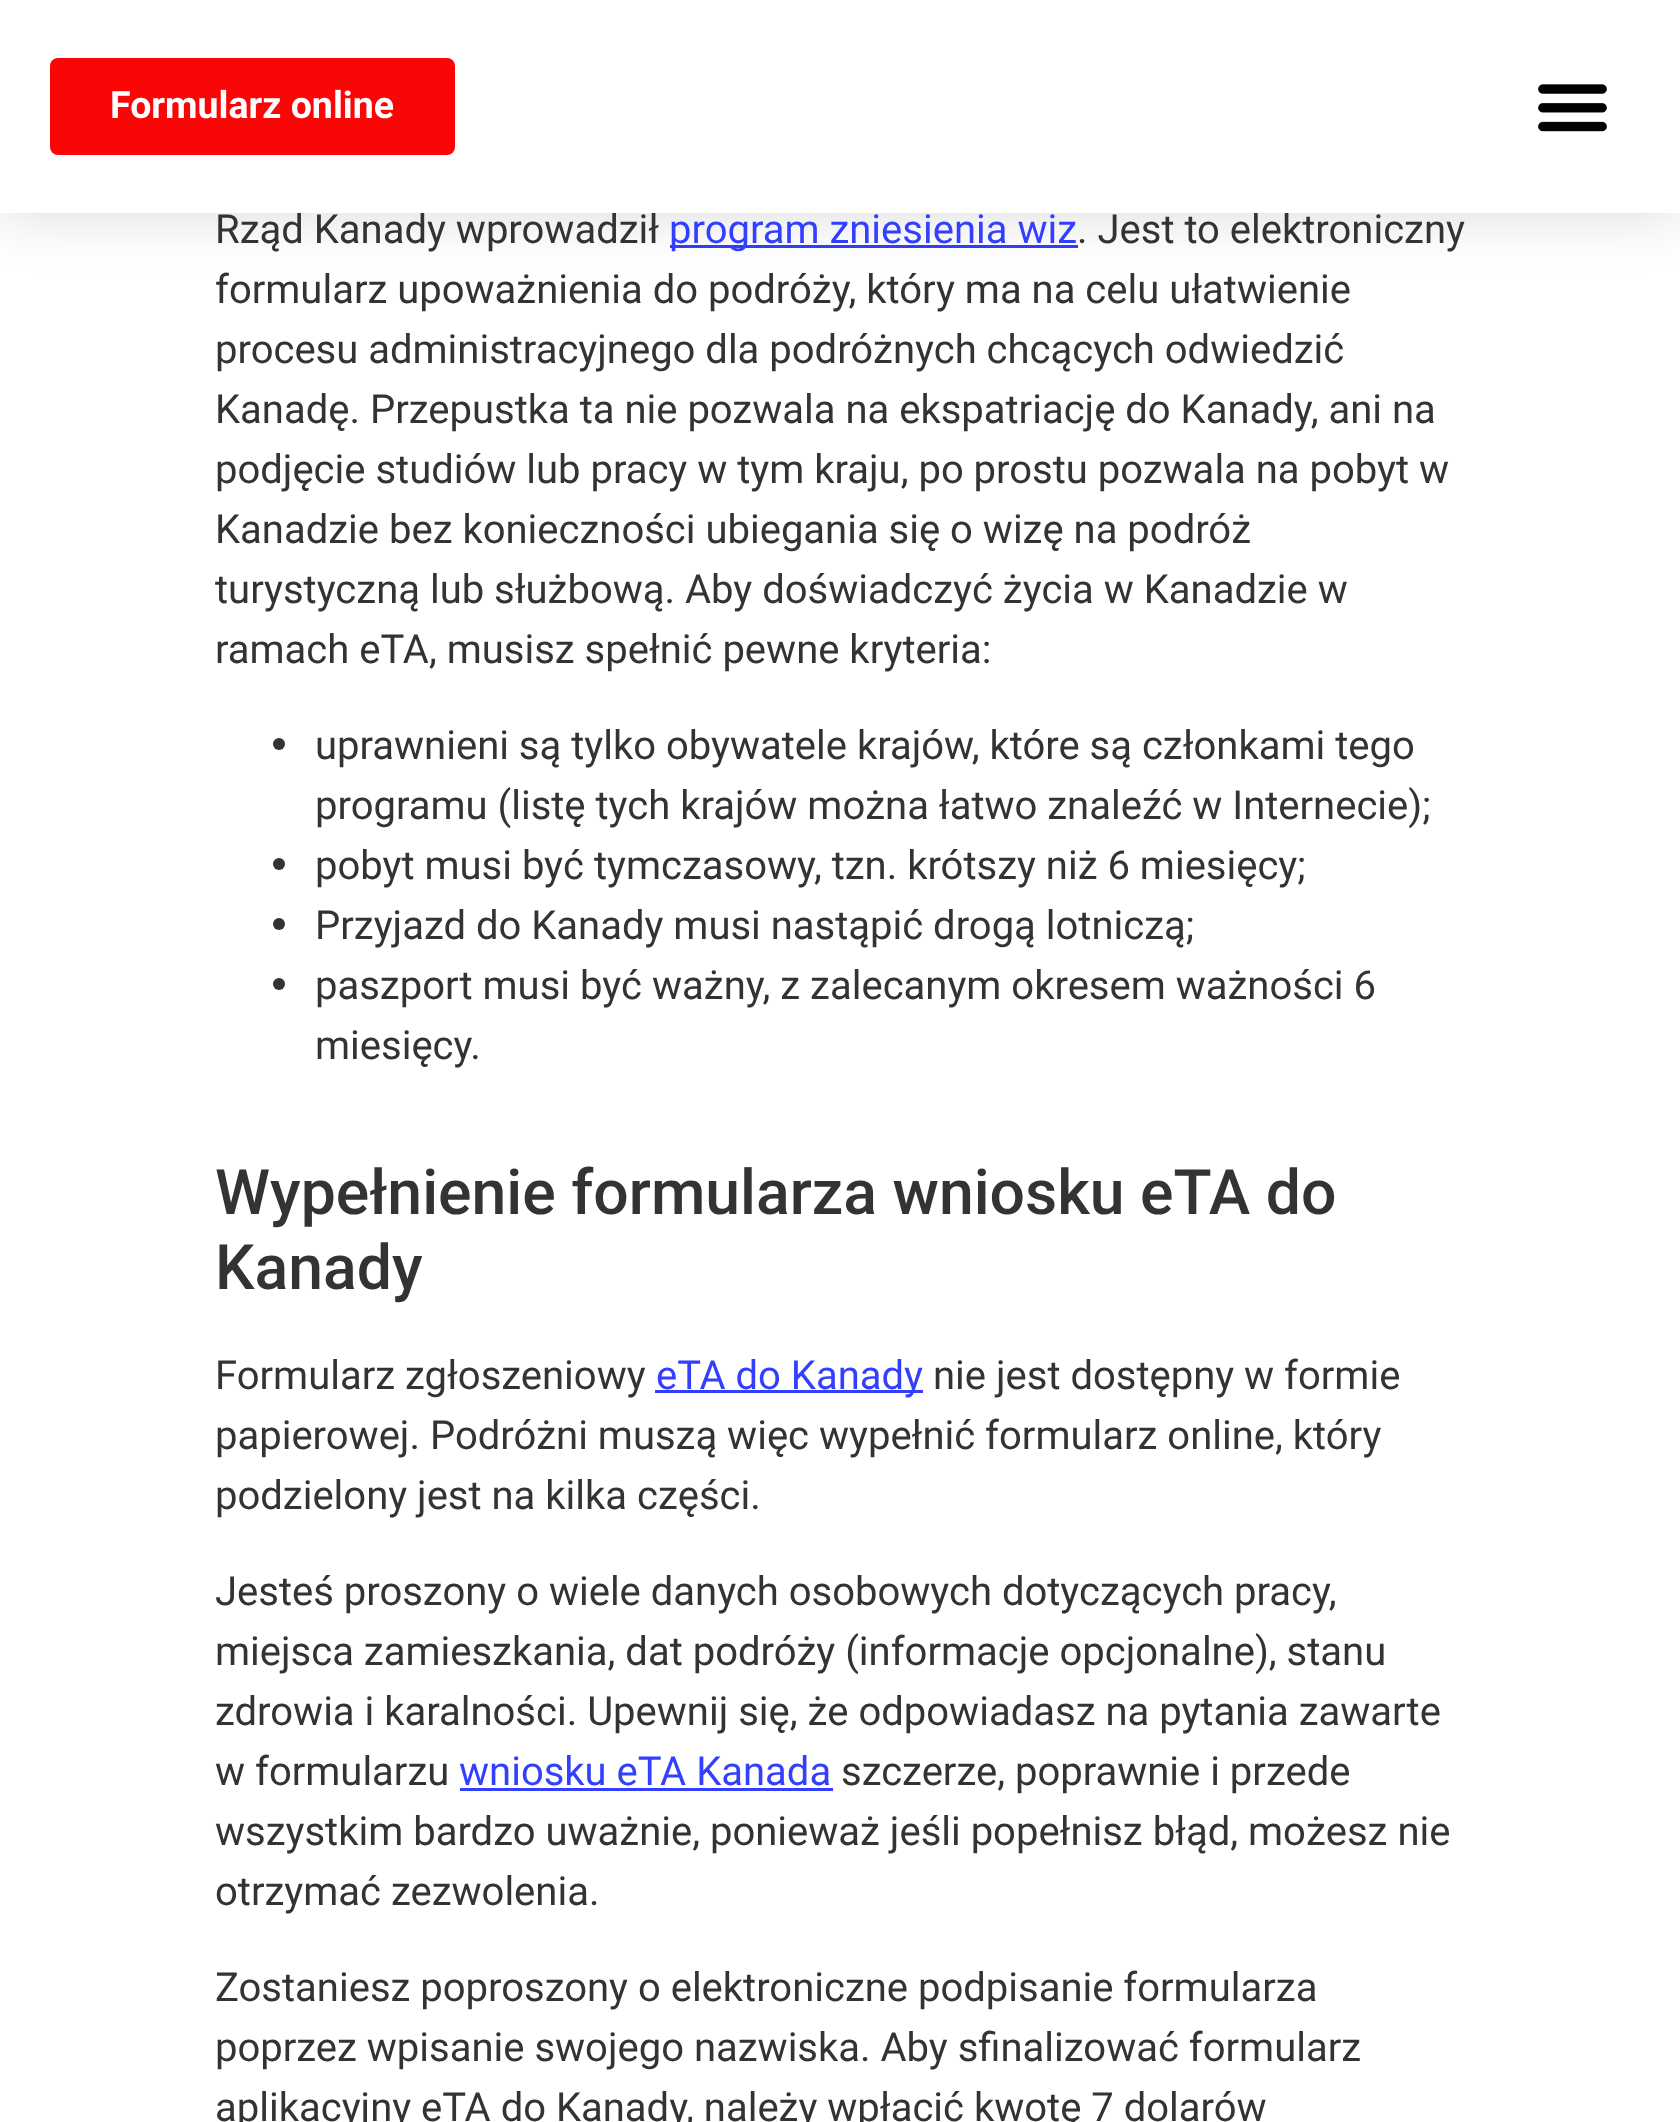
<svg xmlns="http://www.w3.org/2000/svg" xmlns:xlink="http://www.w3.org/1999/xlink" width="1680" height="2122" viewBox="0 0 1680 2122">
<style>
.cls-1{font:bold 37.5px Roboto;fill:#ffffff}
.cls-2{font:40px Roboto;fill:#333333}
.cls-3{font:40px Roboto;fill:#333fff}
.cls-4{font:500 62.5px Roboto;fill:#333333}
</style>
<rect width="100%" height="100%" fill="#ffffff"/>
<rect fill="#333fff" x="670" y="245" width="408" height="3"/>
<rect fill="#000000" fill-opacity="0.15" filter="blur(30px)" x="0" y="0" width="1680" height="213"/>
<rect fill="#ffffff" x="0" y="0" width="1680" height="213"/>
<rect fill="#fb0606" x="50" y="58" width="405" height="97" rx="8"/>
<image xlink:href="image0.png" x="1538" y="84" width="69" height="48"/>
<circle fill="#333333" cx="279" cy="744" r="6"/>
<circle fill="#333333" cx="279" cy="864" r="6"/>
<circle fill="#333333" cx="279" cy="924" r="6"/>
<circle fill="#333333" cx="279" cy="984" r="6"/>
<rect fill="#333fff" x="655" y="1390" width="268" height="3"/>
<rect fill="#333fff" x="460" y="1788" width="373" height="3"/>
<text class="cls-1" x="110" y="118">Formularz online</text>
<text class="cls-2" x="215" y="243">Rząd Kanady wprowadził</text>
<text class="cls-3" x="669" y="243">program zniesienia wiz</text>
<text class="cls-2" x="1077" y="243">. Jest to elektroniczny</text>
<text class="cls-2"><tspan x="215" y="303">formularz upoważnienia do podróży, który ma na celu ułatwienie</tspan><tspan x="215" y="363">procesu administracyjnego dla podróżnych chcących odwiedzić</tspan><tspan x="215" y="423">Kanadę. Przepustka ta nie pozwala na ekspatriację do Kanady, ani na</tspan><tspan x="215" y="483">podjęcie studiów lub pracy w tym kraju, po prostu pozwala na pobyt w</tspan><tspan x="215" y="543">Kanadzie bez konieczności ubiegania się o wizę na podróż</tspan><tspan x="215" y="603">turystyczną lub służbową. Aby doświadczyć życia w Kanadzie w</tspan><tspan x="215" y="663">ramach eTA, musisz spełnić pewne kryteria:</tspan></text>
<text class="cls-2"><tspan x="315" y="759">uprawnieni są tylko obywatele krajów, które są członkami tego</tspan><tspan x="315" y="819">programu (listę tych krajów można łatwo znaleźć w Internecie);</tspan><tspan x="315" y="879">pobyt musi być tymczasowy, tzn. krótszy niż 6 miesięcy;</tspan><tspan x="315" y="939">Przyjazd do Kanady musi nastąpić drogą lotniczą;</tspan><tspan x="315" y="999">paszport musi być ważny, z zalecanym okresem ważności 6</tspan><tspan x="315" y="1059">miesięcy.</tspan></text>
<text class="cls-4"><tspan x="215" y="1214">Wypełnienie formularza wniosku eTA do</tspan><tspan x="215" y="1289">Kanady</tspan></text>
<text class="cls-2" x="215" y="1389">Formularz zgłoszeniowy</text>
<text class="cls-3" x="656" y="1389">eTA do Kanady</text>
<text class="cls-2" x="933" y="1389">nie jest dostępny w formie</text>
<text class="cls-2"><tspan x="215" y="1449">papierowej. Podróżni muszą więc wypełnić formularz online, który</tspan><tspan x="215" y="1509">podzielony jest na kilka części.</tspan></text>
<text class="cls-2"><tspan x="215" y="1605">Jesteś proszony o wiele danych osobowych dotyczących pracy,</tspan><tspan x="215" y="1665">miejsca zamieszkania, dat podróży (informacje opcjonalne), stanu</tspan><tspan x="215" y="1725">zdrowia i karalności. Upewnij się, że odpowiadasz na pytania zawarte</tspan><tspan x="215" y="1785">w formularzu</tspan></text>
<text class="cls-3" x="459" y="1785">wniosku eTA Kanada</text>
<text class="cls-2" x="841" y="1785">szczerze, poprawnie i przede</text>
<text class="cls-2"><tspan x="215" y="1845">wszystkim bardzo uważnie, ponieważ jeśli popełnisz błąd, możesz nie</tspan><tspan x="215" y="1905">otrzymać zezwolenia.</tspan></text>
<text class="cls-2"><tspan x="215" y="2001">Zostaniesz poproszony o elektroniczne podpisanie formularza</tspan><tspan x="215" y="2061">poprzez wpisanie swojego nazwiska. Aby sfinalizować formularz</tspan><tspan x="215" y="2121">aplikacyjny eTA do Kanady, należy wpłacić kwotę 7 dolarów</tspan></text>
</svg>
